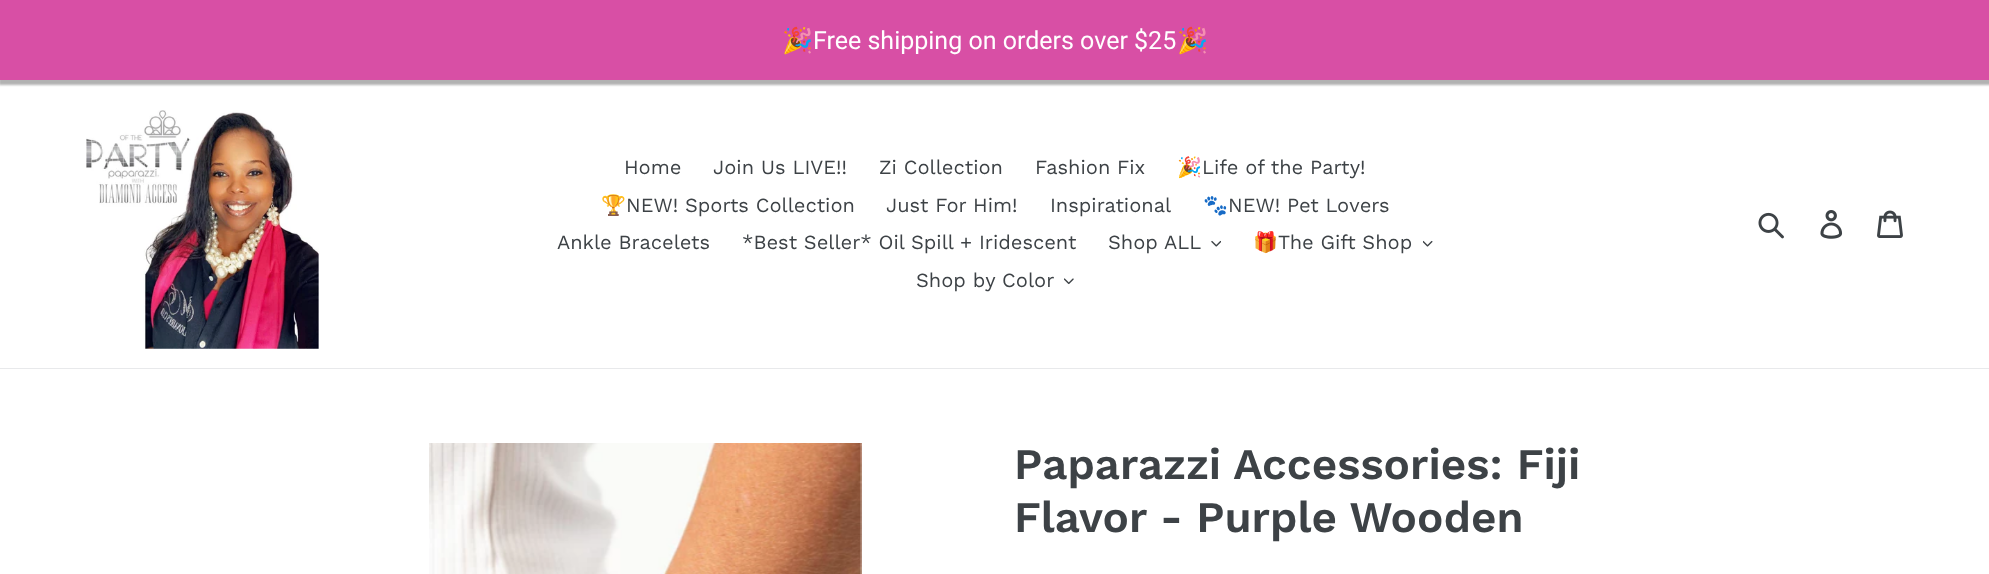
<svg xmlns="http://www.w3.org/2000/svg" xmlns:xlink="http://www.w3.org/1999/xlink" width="1989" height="574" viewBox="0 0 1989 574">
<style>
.cls-1{font:25px Noto Color Emoji;fill:#ffffff}
.cls-2{font:25px Roboto;fill:#ffffff}
.cls-3{font:20px Work Sans;fill:#3d4246}
.cls-4{font:20px Noto Color Emoji;fill:#3d4246}
.cls-5{font:600 43.75px Work Sans;fill:#3d4246}
</style>
<rect width="100%" height="100%" fill="#ffffff"/>
<rect fill="#000000" fill-opacity="0.3" filter="blur(1px)" x="-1" y="3" width="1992" height="82"/>
<rect fill="#d84fa5" x="0" y="0" width="1989" height="80"/>
<rect fill="#e8e9eb" x="0" y="368" width="1989" height="1"/>
<image xlink:href="image0.png" x="86" y="110" width="233" height="239"/>
<image xlink:href="image1.png" x="1211" y="240" width="10" height="7"/>
<image xlink:href="image2.png" x="1423" y="240" width="10" height="7"/>
<image xlink:href="image3.png" x="1064" y="278" width="10" height="7"/>
<image xlink:href="image4.png" x="1758" y="212" width="26" height="27"/>
<image xlink:href="image5.png" x="1820" y="210" width="23" height="29"/>
<image xlink:href="image6.png" x="1877" y="210" width="26" height="28"/>
<image xlink:href="image7.png" x="429" y="443" width="433" height="131"/>
<text class="cls-1" x="782" y="49">🎉</text>
<text class="cls-2" x="813" y="49">Free shipping on orders over $25</text>
<text class="cls-1" x="1177" y="49">🎉</text>
<text class="cls-3" x="624" y="174">Home</text>
<text class="cls-3" x="713" y="174">Join Us LIVE!!</text>
<text class="cls-3" x="879" y="174">Zi Collection</text>
<text class="cls-3" x="1035" y="174">Fashion Fix</text>
<text class="cls-4" x="1177" y="174">🎉</text>
<text class="cls-3" x="1202" y="174">Life of the Party!</text>
<text class="cls-4" x="601" y="212">🏆</text>
<text class="cls-3" x="626" y="212">NEW! Sports Collection</text>
<text class="cls-3" x="886" y="212">Just For Him!</text>
<text class="cls-3" x="1050" y="212">Inspirational</text>
<text class="cls-4" x="1203" y="212">🐾</text>
<text class="cls-3" x="1228" y="212">NEW! Pet Lovers</text>
<text class="cls-3" x="557" y="249">Ankle Bracelets</text>
<text class="cls-3" x="742" y="249">*Best Seller* Oil Spill + Iridescent</text>
<text class="cls-3" x="1108" y="249">Shop ALL</text>
<text class="cls-4" x="1253" y="249">🎁</text>
<text class="cls-3" x="1278" y="249">The Gift Shop</text>
<text class="cls-3" x="916" y="287">Shop by Color</text>
<text class="cls-5"><tspan x="1014" y="479">Paparazzi Accessories: Fiji</tspan><tspan x="1014" y="532">Flavor - Purple Wooden</tspan></text>
</svg>
